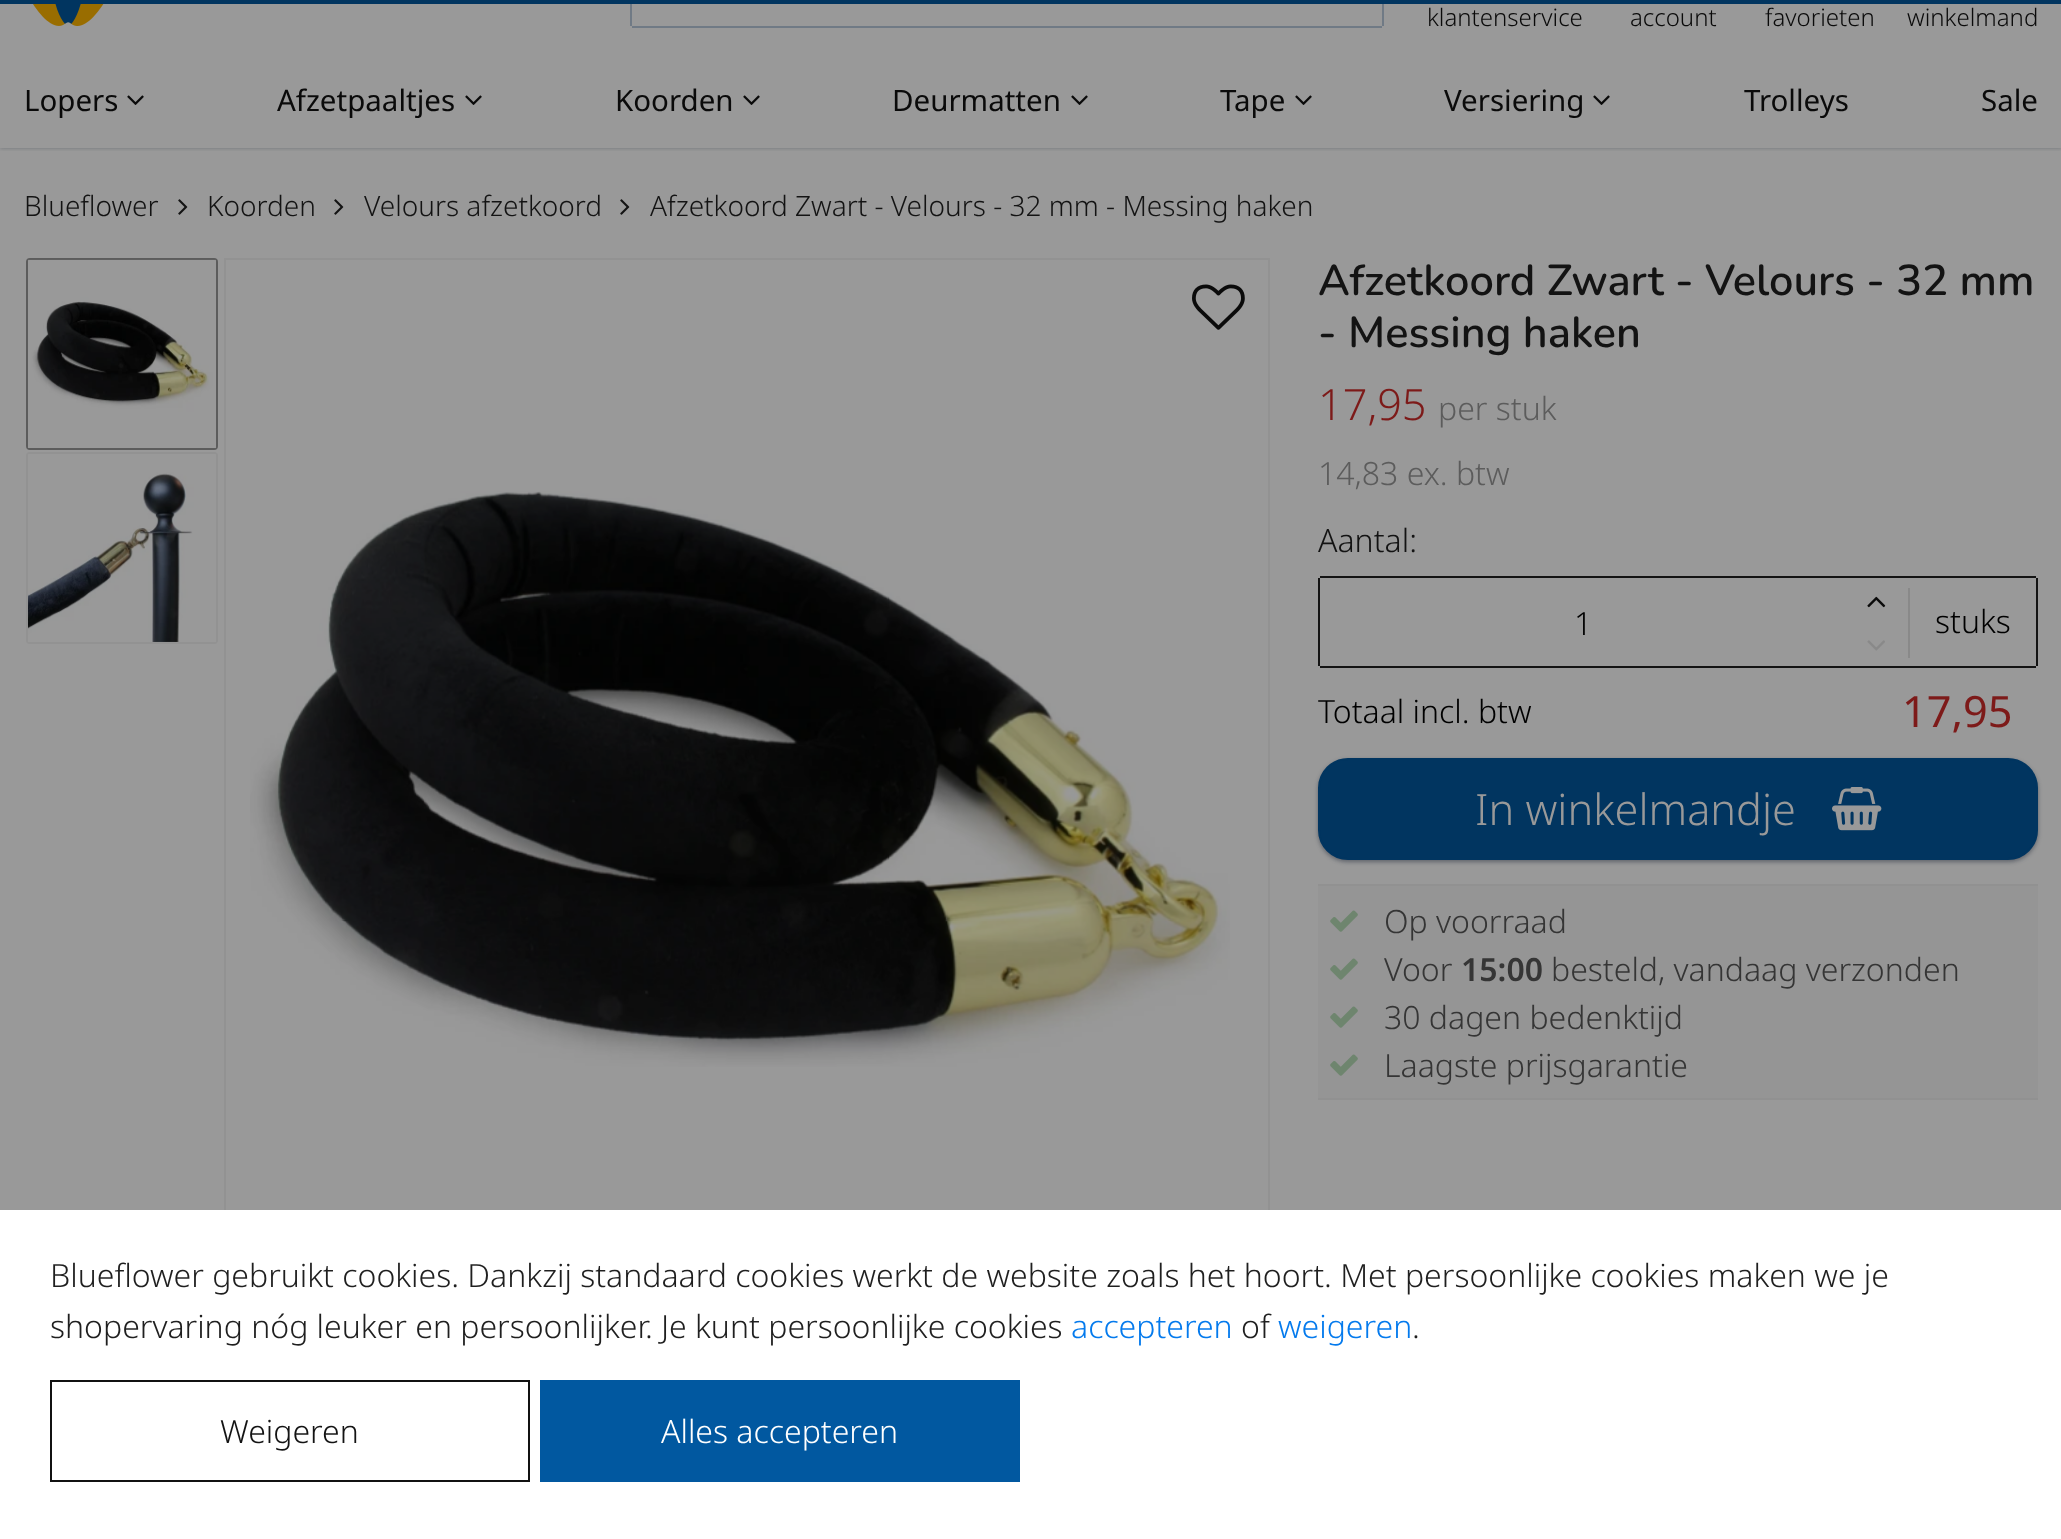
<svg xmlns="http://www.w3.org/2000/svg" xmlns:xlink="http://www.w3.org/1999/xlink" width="2061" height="1539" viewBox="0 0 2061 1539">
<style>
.cls-1{font:300 24px Noto Sans;fill:#0a0a0a}
.cls-2{font:29.5px Noto Sans;fill:#0a0a0a}
.cls-3{font:300 28px Noto Sans;fill:#131313}
.cls-4{font:200 43.25px Nunito;fill:#131313}
.cls-5{font:300 43.25px Noto Sans;fill:#7d1a19}
.cls-6{font:300 32px Noto Sans;fill:#5c5c5c}
.cls-7{font:300 32px Noto Sans;fill:#131313}
.cls-8{font:300 32px Noto Sans;fill:#000000}
.cls-9{font:43.25px Noto Sans;fill:#7d1a19}
.cls-10{font:300 43.25px Noto Sans;fill:#999999}
.cls-11{font:300 32px Noto Sans;fill:#353535}
.cls-12{font:600 32px Noto Sans;fill:#353535}
.cls-13{font:300 32px Noto Sans;fill:#1f1f1f}
.cls-14{font:300 32px Noto Sans;fill:#047aed}
.cls-15{font:300 32px Noto Sans;fill:#ffffff}
</style>
<defs>
<clipPath id="clip1"><rect x="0" y="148" width="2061" height="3"/></clipPath>
</defs>
<rect width="100%" height="100%" fill="#999999"/>
<g clip-path="url(#clip1)">
<rect fill="#333d47" fill-opacity="0.4" filter="blur(2px)" x="0" y="-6" width="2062" height="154"/>
</g>
<rect fill="#707a85" x="630" y="0" width="2" height="26"/>
<rect fill="#707a85" x="1382" y="0" width="2" height="26"/>
<rect fill="#013560" x="0" y="0" width="2061" height="4"/>
<image xlink:href="image0.png" x="33" y="4" width="71" height="22"/>
<rect fill="#707a85" x="632" y="26" width="750" height="2"/>
<image xlink:href="image1.png" x="127" y="95" width="17" height="10"/>
<image xlink:href="image1.png" x="465" y="95" width="17" height="10"/>
<image xlink:href="image1.png" x="743" y="95" width="17" height="10"/>
<image xlink:href="image1.png" x="1071" y="95" width="17" height="10"/>
<image xlink:href="image1.png" x="1295" y="95" width="17" height="10"/>
<image xlink:href="image1.png" x="1593" y="95" width="17" height="10"/>
<image xlink:href="image2.png" x="178" y="199" width="10" height="16"/>
<image xlink:href="image2.png" x="334" y="199" width="10" height="16"/>
<image xlink:href="image2.png" x="620" y="199" width="10" height="16"/>
<rect fill="none" stroke="#5c5c5c" stroke-width="2" x="27" y="259" width="190" height="190" rx="3"/>
<image xlink:href="image3.png" x="28" y="259" width="188" height="189"/>
<rect fill="none" stroke="#929292" stroke-width="2" x="27" y="453" width="190" height="190" rx="3"/>
<image xlink:href="image4.png" x="28" y="454" width="188" height="188"/>
<rect fill="none" stroke="#929292" stroke-width="2" x="225" y="259" width="1044" height="1044"/>
<image xlink:href="image5.png" x="250" y="491" width="980" height="576"/>
<image xlink:href="image6.png" x="1192" y="284" width="53" height="46"/>
<rect fill="#131313" x="1320" y="576" width="716" height="2"/>
<rect fill="#131313" x="1320" y="666" width="716" height="2"/>
<rect fill="#131313" x="1318" y="578" width="2" height="88"/>
<image xlink:href="image7.png" x="1867" y="596" width="19" height="12"/>
<image xlink:href="image8.png" x="1867" y="640" width="18" height="11"/>
<rect fill="#131313" x="2036" y="578" width="2" height="88"/>
<rect fill="#898989" x="1908" y="588" width="2" height="70"/>
<rect fill="#0a1429" fill-opacity="0.4" filter="blur(2px)" x="1318" y="760" width="720" height="102" rx="30"/>
<rect fill="#013560" stroke="#013560" stroke-width="2" x="1319" y="759" width="718" height="100" rx="29"/>
<image xlink:href="image9.png" x="1832" y="787" width="50" height="44"/>
<rect fill="#959595" x="1318" y="886" width="720" height="212"/>
<rect fill="#919191" x="1318" y="884" width="720" height="2"/>
<rect fill="#919191" x="1318" y="1098" width="720" height="2"/>
<image xlink:href="image10.png" x="1330" y="910" width="28" height="22"/>
<image xlink:href="image10.png" x="1330" y="958" width="28" height="22"/>
<image xlink:href="image10.png" x="1330" y="1006" width="28" height="22"/>
<image xlink:href="image10.png" x="1330" y="1054" width="28" height="22"/>
<rect fill="#ffffff" x="0" y="1210" width="2061" height="329"/>
<rect fill="none" stroke="#111111" stroke-width="2" x="51" y="1381" width="478" height="100"/>
<rect fill="#0158a0" x="540" y="1380" width="480" height="102"/>
<text class="cls-1" x="1427" y="26">klantenservice</text>
<text class="cls-1" x="1630" y="26">account</text>
<text class="cls-1" x="1765" y="26">favorieten</text>
<text class="cls-1" x="1907" y="26">winkelmand</text>
<text class="cls-2" x="24" y="111">Lopers</text>
<text class="cls-2" x="277" y="111">Afzetpaaltjes</text>
<text class="cls-2" x="615" y="111">Koorden</text>
<text class="cls-2" x="892" y="111">Deurmatten</text>
<text class="cls-2" x="1220" y="111">Tape</text>
<text class="cls-2" x="1444" y="111">Versiering</text>
<text class="cls-2" x="1744" y="111">Trolleys</text>
<text class="cls-2" x="1981" y="111">Sale</text>
<text class="cls-3" x="24" y="216">Blueflower</text>
<text class="cls-3" x="207" y="216">Koorden</text>
<text class="cls-3" x="364" y="216">Velours afzetkoord</text>
<text class="cls-3" x="650" y="216">Afzetkoord Zwart - Velours - 32 mm - Messing haken</text>
<text class="cls-4"><tspan x="1318" y="295">Afzetkoord Zwart - Velours - 32 mm</tspan><tspan x="1318" y="347">- Messing haken</tspan></text>
<text class="cls-5" x="1318" y="420">17,95</text>
<text class="cls-6" x="1438" y="420">per stuk</text>
<text class="cls-6" x="1318" y="485">14,83 ex. btw</text>
<text class="cls-7" x="1318" y="552">Aantal:</text>
<text class="cls-8" x="1574" y="635">1</text>
<text class="cls-8" x="1935" y="633">stuks</text>
<text class="cls-8" x="1318" y="723">Totaal incl. btw</text>
<text class="cls-9" x="1902" y="727">17,95</text>
<text class="cls-10" x="1475" y="825">In winkelmandje</text>
<text class="cls-11"><tspan x="1384" y="933">Op voorraad</tspan><tspan x="1384" y="981">Voor</tspan></text>
<text class="cls-12" x="1461" y="981">15:00</text>
<text class="cls-11" x="1551" y="981">besteld, vandaag verzonden</text>
<text class="cls-11"><tspan x="1384" y="1029">30 dagen bedenktijd</tspan><tspan x="1384" y="1077">Laagste prijsgarantie</tspan></text>
<text class="cls-13"><tspan x="50" y="1287">Blueflower gebruikt cookies. Dankzij standaard cookies werkt de website zoals het hoort. Met persoonlijke cookies maken we je</tspan><tspan x="50" y="1338">shopervaring nóg leuker en persoonlijker. Je kunt persoonlijke cookies</tspan></text>
<text class="cls-14" x="1071" y="1338">accepteren</text>
<text class="cls-13" x="1241" y="1338">of</text>
<text class="cls-14" x="1278" y="1338">weigeren</text>
<text class="cls-13" x="1412" y="1338">.</text>
<text class="cls-7" x="220" y="1443">Weigeren</text>
<text class="cls-15" x="661" y="1443">Alles accepteren</text>
</svg>
